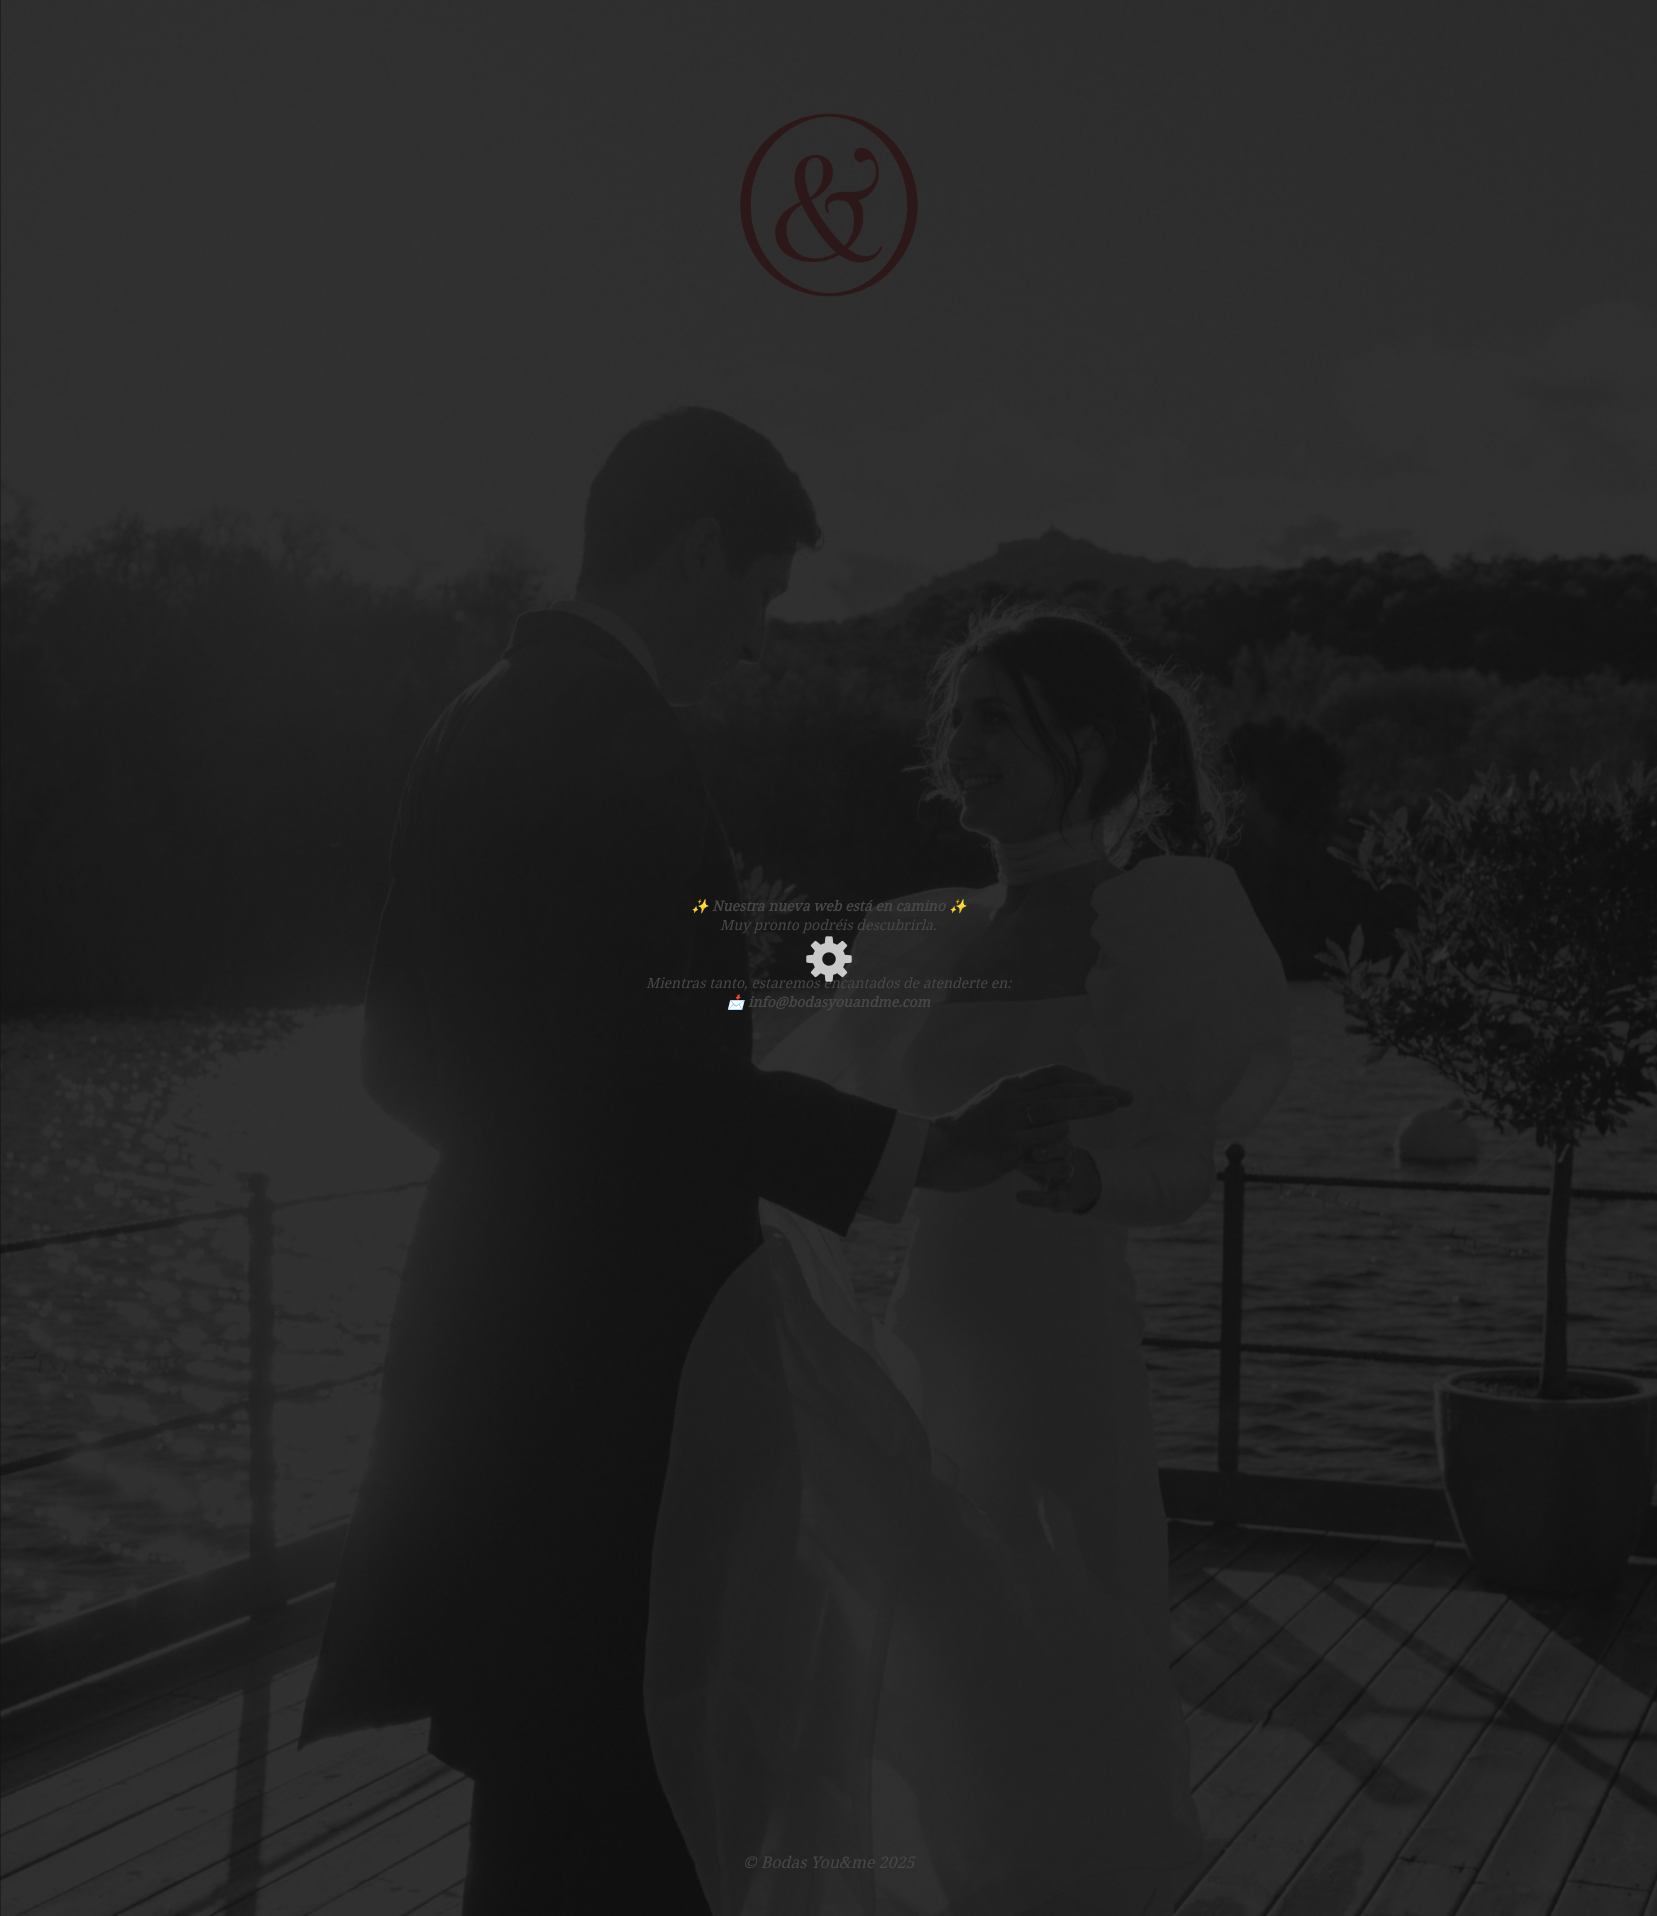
<svg xmlns="http://www.w3.org/2000/svg" xmlns:xlink="http://www.w3.org/1999/xlink" width="1657" height="1916" viewBox="0 0 1657 1916">
<style>
.cls-1{font:italic 14px Noto Color Emoji;fill:#484848}
.cls-2{font:italic bold 14px Noto Serif;fill:#484848}
.cls-3{font:italic 14px Noto Serif;fill:#484848}
.cls-4{font:italic 16px Noto Serif;fill:#484848}
</style>
<rect width="100%" height="100%" fill="#111111"/>
<image xlink:href="image0.png" x="0" y="0" width="1657" height="1916"/>
<image xlink:href="image1.png" x="740" y="113" width="178" height="184"/>
<text class="cls-1" x="691" y="911">✨</text>
<text class="cls-2" x="712" y="911">Nuestra nueva web está en camino</text>
<text class="cls-1" x="949" y="911">✨</text>
<text class="cls-3" x="720" y="930">Muy pronto podréis descubrirla.</text>
<text class="cls-3" x="646" y="988">Mientras tanto, estaremos encantados de atenderte en:</text>
<text class="cls-1" x="727" y="1007">📩</text>
<text class="cls-2" x="748" y="1007">info@bodasyouandme.com</text>
<image xlink:href="image2.png" x="806" y="936" width="46" height="46"/>
<text class="cls-4" x="743" y="1868">© Bodas You&amp;me 2025</text>
</svg>
